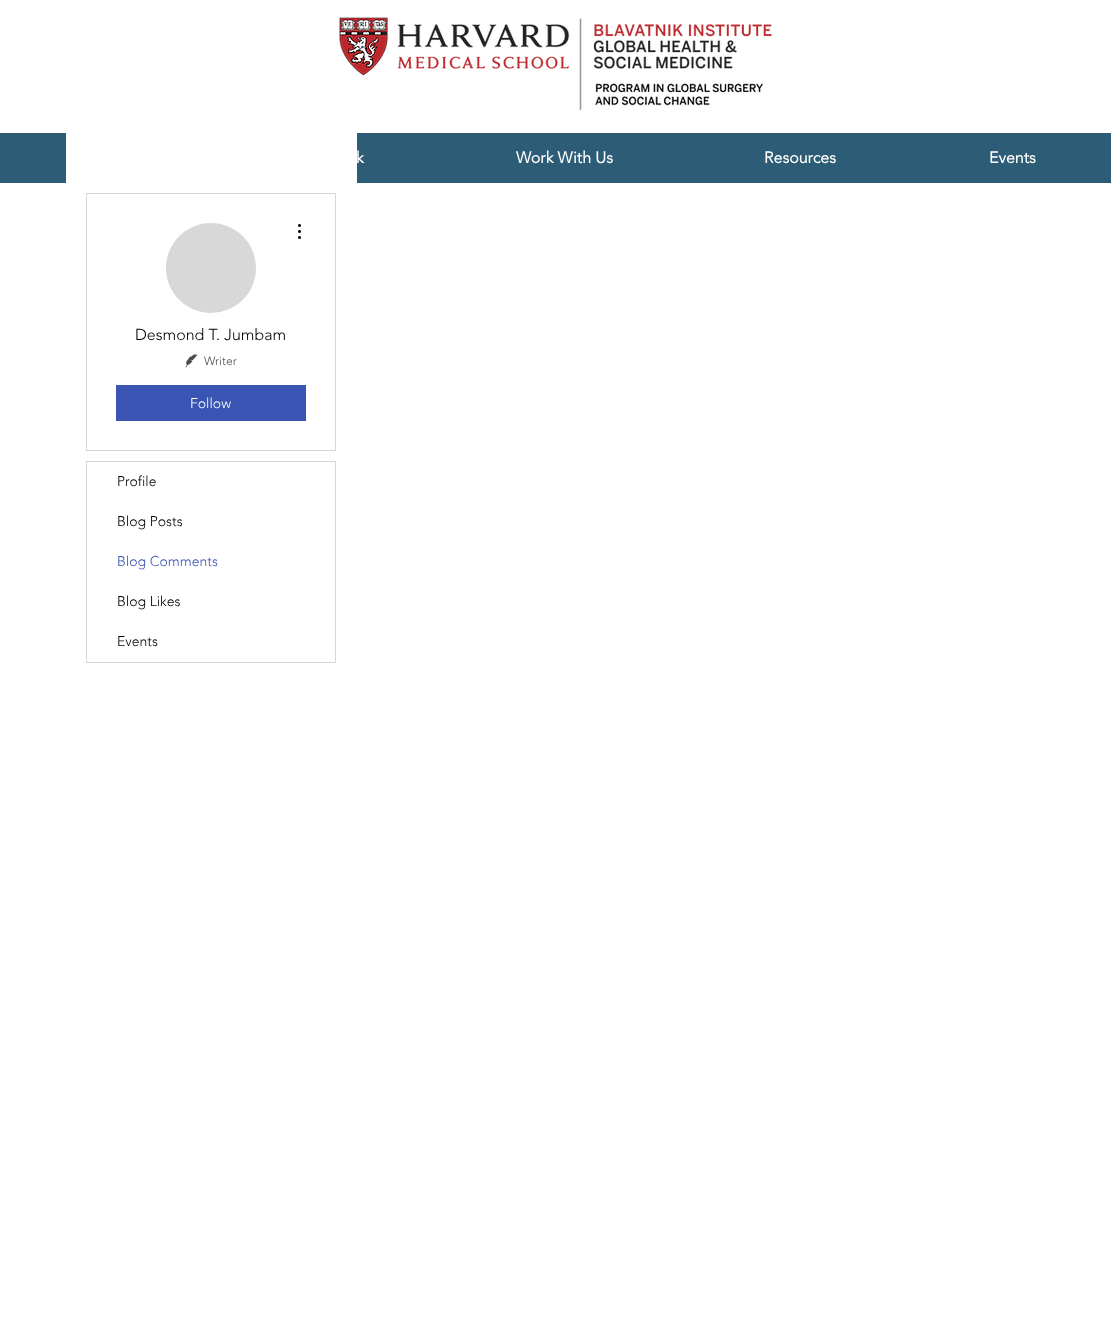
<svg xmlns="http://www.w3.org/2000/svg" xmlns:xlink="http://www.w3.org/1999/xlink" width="1111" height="1342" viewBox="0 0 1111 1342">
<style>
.cls-1{font:bold 16px 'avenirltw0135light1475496';fill:#ffffff}
.cls-2{font:300 16px 'avenirltw0135light1475496';fill:#000000}
.cls-3{font:300 12px 'avenirltw0135light1475496';fill:#4d4d4d}
.cls-4{font:300 14px 'avenirltw0135light1475496';fill:#ffffff}
.cls-5{font:300 14px 'avenirltw0135light1475496';fill:#000000}
.cls-6{font:300 14px 'avenirltw0135light1475496';fill:#3a54b4}
</style>
<rect width="100%" height="100%" fill="#ffffff"/>
<image xlink:href="image0.png" x="339" y="17" width="433" height="94"/>
<rect fill="#2d5d76" x="0" y="133" width="1111" height="50"/>
<rect fill="#ffffff" x="66" y="133" width="291" height="50"/>
<rect fill="none" stroke="#d6d6d6" x="86.5" y="193.5" width="249" height="257"/>
<circle fill="#d8d8d8" cx="211" cy="268" r="45"/>
<image xlink:href="image1.png" x="298" y="224" width="3" height="15"/>
<image xlink:href="image2.png" x="185" y="354" width="12" height="14"/>
<rect fill="#3a54b4" x="116" y="385" width="190" height="36"/>
<rect fill="none" stroke="#d6d6d6" x="86.5" y="461.5" width="249" height="201"/>
<text class="cls-1" x="356" y="163">k</text>
<text class="cls-1" x="516" y="163">Work With Us</text>
<text class="cls-1" x="764" y="163">Resources</text>
<text class="cls-1" x="989" y="163">Events</text>
<text class="cls-2" x="135" y="340">Desmond T. Jumbam</text>
<text class="cls-3" x="204" y="365">Writer</text>
<text class="cls-4" x="190" y="408">Follow</text>
<text class="cls-5" x="117" y="486">Profile</text>
<text class="cls-5" x="117" y="526">Blog Posts</text>
<text class="cls-6" x="117" y="566">Blog Comments</text>
<text class="cls-5" x="117" y="606">Blog Likes</text>
<text class="cls-5" x="117" y="646">Events</text>
</svg>
